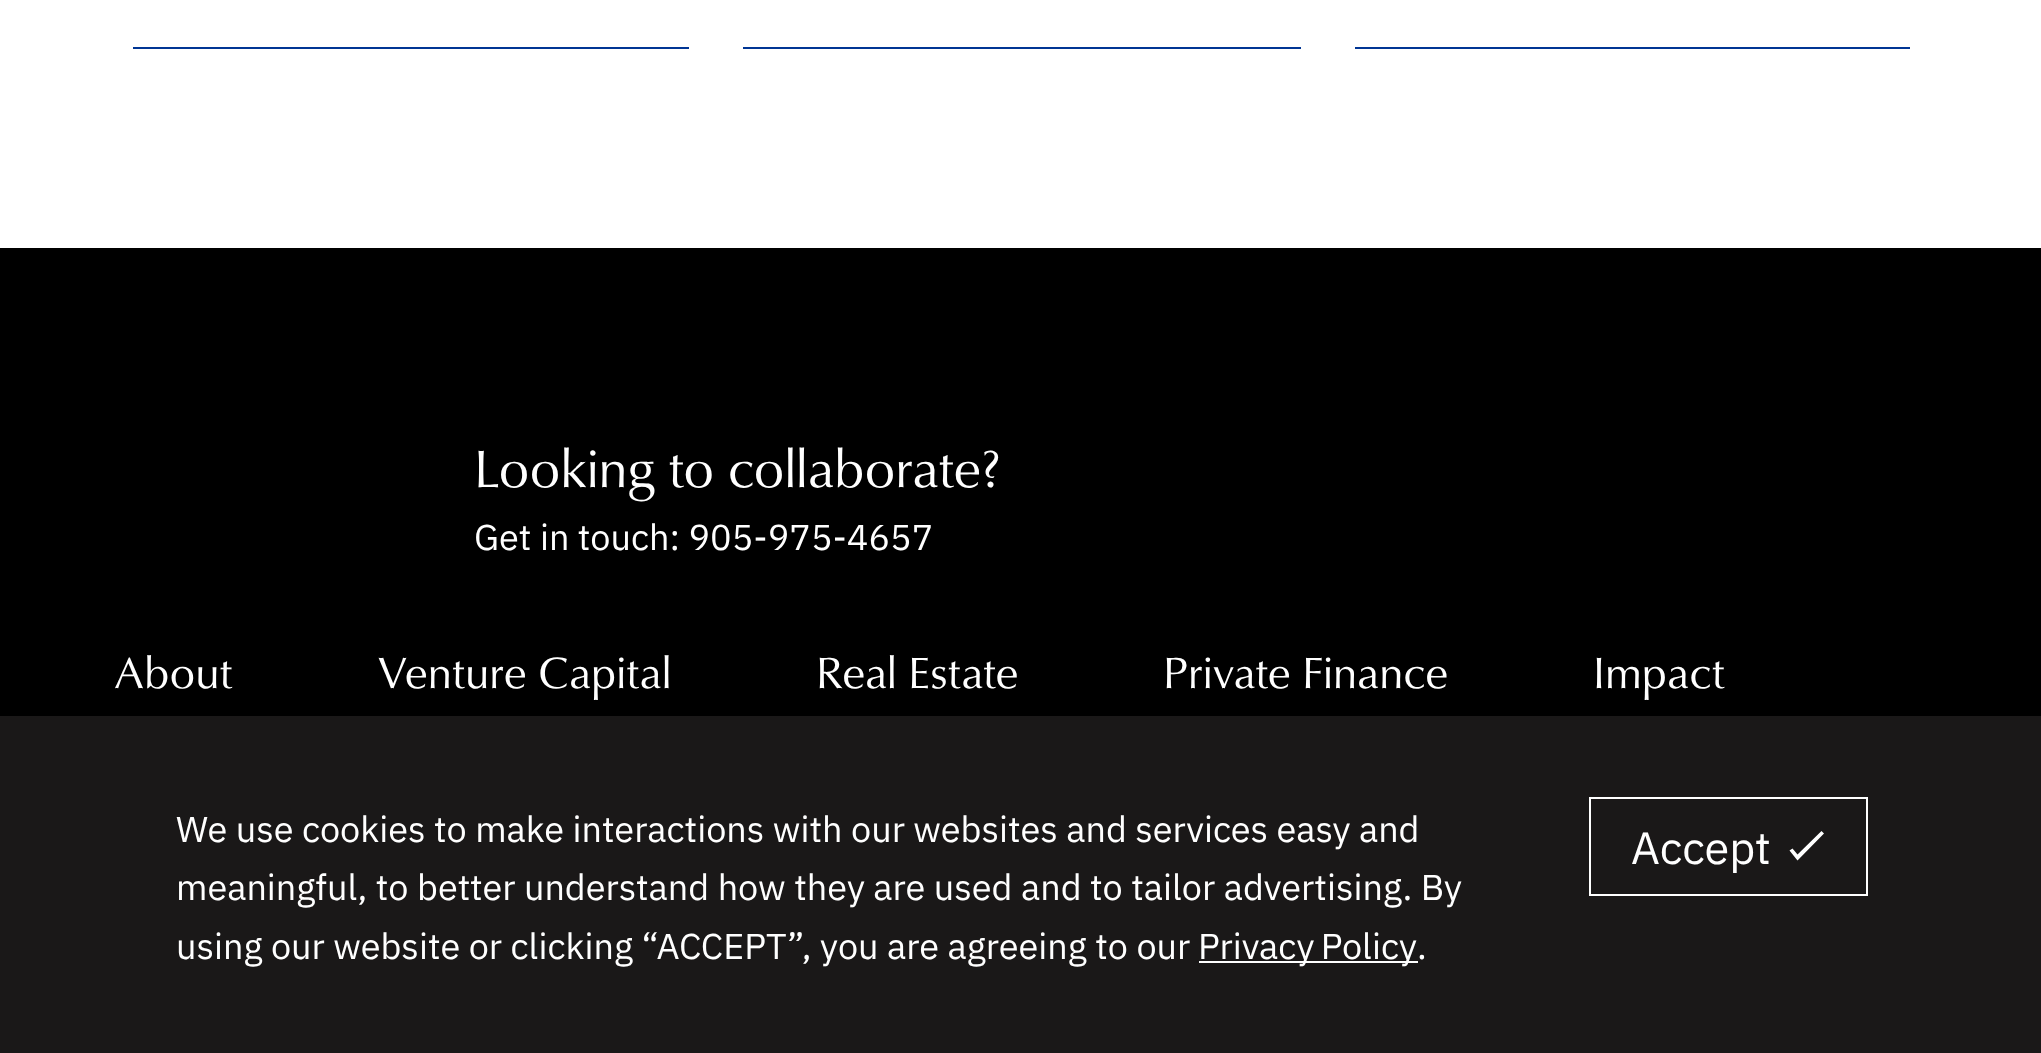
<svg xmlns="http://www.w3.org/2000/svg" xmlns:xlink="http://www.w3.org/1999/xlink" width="2041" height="1053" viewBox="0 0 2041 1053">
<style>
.cls-1{font:54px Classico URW;fill:#ffffff}
.cls-2{font:36px IBM Plex Sans;fill:#ffffff}
.cls-3{font:45px Classico URW;fill:#ffffff}
.cls-4{font:45px IBM Plex Sans;fill:#ffffff}
</style>
<rect width="100%" height="100%" fill="#ffffff"/>
<rect fill="#003594" x="133" y="47" width="556" height="2"/>
<rect fill="#003594" x="743" y="47" width="558" height="2"/>
<rect fill="#003594" x="1355" y="47" width="555" height="2"/>
<rect fill="#000000" x="0" y="248" width="2041" height="468"/>
<rect fill="#1a1818" x="0" y="716" width="2041" height="337"/>
<rect fill="#ffffff" x="1199" y="961" width="219" height="2"/>
<rect fill="none" stroke="#ffffff" stroke-width="2" x="1590" y="798" width="277" height="97"/>
<path fill="#ffffff" d="M1797.5 860.5L1789.5 850.5L1792.5 848.5L1797.5 854.5L1821.5 831L1824 833.5Z"/>
<text class="cls-1" x="474" y="487">Looking to collaborate?</text>
<text class="cls-2" x="474" y="550">Get in touch: 905-975-4657</text>
<text class="cls-3" x="114" y="688">About</text>
<text class="cls-3" x="378" y="688">Venture Capital</text>
<text class="cls-3" x="816" y="688">Real Estate</text>
<text class="cls-3" x="1163" y="688">Private Finance</text>
<text class="cls-3" x="1593" y="688">Impact</text>
<text class="cls-2"><tspan x="176" y="842">We use cookies to make interactions with our websites and services easy and</tspan><tspan x="176" y="900">meaningful, to better understand how they are used and to tailor advertising. By</tspan><tspan x="176" y="959">using our website or clicking “ACCEPT”, you are agreeing to our</tspan></text>
<text class="cls-2" x="1198" y="959" word-spacing="-2">Privacy Policy</text>
<text class="cls-2" x="1417" y="959">.</text>
<text class="cls-4" x="1631" y="864">Accept</text>
</svg>
